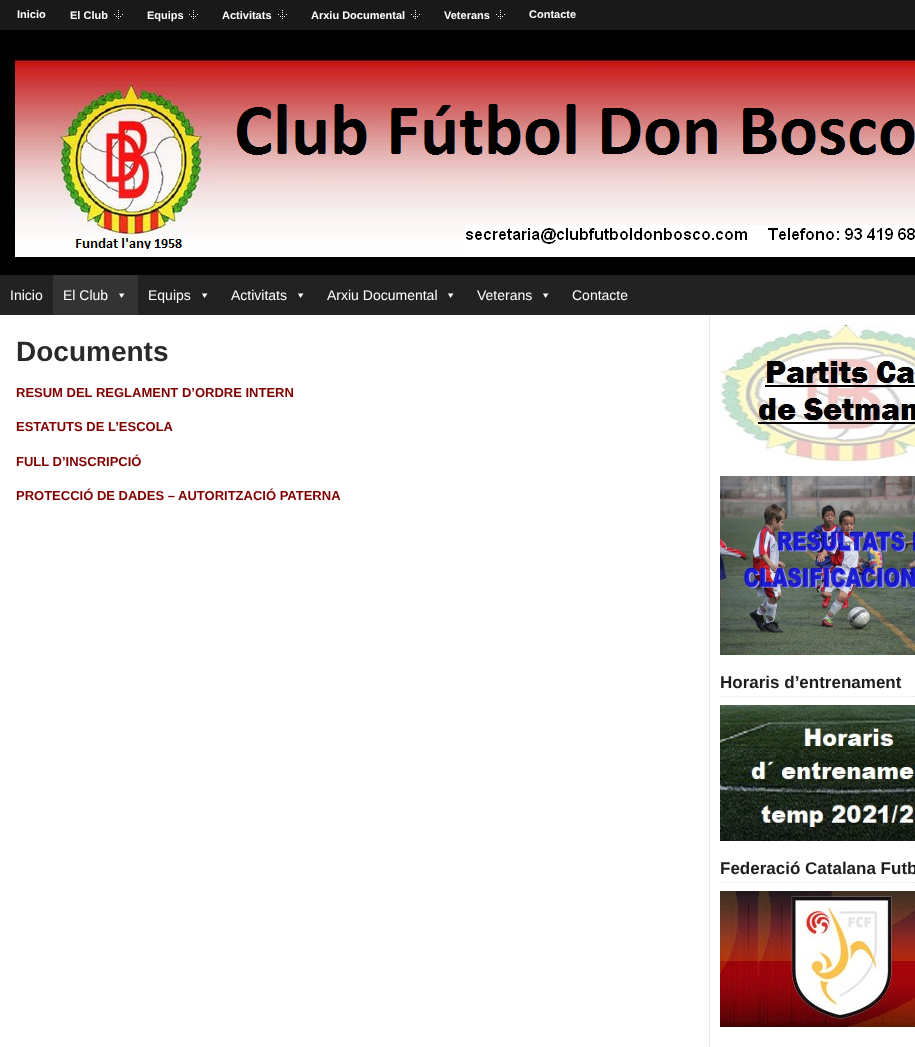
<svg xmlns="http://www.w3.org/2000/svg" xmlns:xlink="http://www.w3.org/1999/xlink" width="915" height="1047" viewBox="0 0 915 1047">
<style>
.cls-1{font:bold 11px Liberation Sans;fill:#ffffff}
.cls-2{font:14px Liberation Sans;fill:#ffffff}
.cls-3{font:bold 28px Liberation Sans;fill:#292929}
.cls-4{font:bold 13px Liberation Sans;fill:#800000}
.cls-5{font:bold 17px Liberation Sans;fill:#1f1c1c}
</style>
<rect width="100%" height="100%" fill="#ffffff"/>
<rect fill="#e7e7e7" x="709" y="315" width="1" height="732"/>
<rect fill="#000000" x="0" y="30" width="915" height="245"/>
<rect fill="#1a1919" x="0" y="0" width="915" height="30"/>
<image xlink:href="image0.png" x="114" y="10" width="9" height="9"/>
<image xlink:href="image0.png" x="189" y="10" width="9" height="9"/>
<image xlink:href="image0.png" x="278" y="10" width="9" height="9"/>
<image xlink:href="image0.png" x="411" y="10" width="9" height="9"/>
<image xlink:href="image0.png" x="496" y="10" width="9" height="9"/>
<image xlink:href="image1.png" x="15" y="60" width="900" height="197"/>
<rect fill="#222222" x="0" y="275" width="915" height="40"/>
<rect fill="#333333" x="53" y="275" width="85" height="40"/>
<path fill="#ffffff" d="M124.5 293.5L121.5 298L119 293.5Z"/>
<path fill="#ffffff" d="M207.5 293.5L204.5 298L202 293.5Z"/>
<path fill="#ffffff" d="M303.5 293.5L300.5 298L298 293.5Z"/>
<path fill="#ffffff" d="M453.5 293.5L450.5 298L448 293.5Z"/>
<path fill="#ffffff" d="M548.5 293.5L545.5 298L543 293.5Z"/>
<image xlink:href="image2.png" x="720" y="325" width="195" height="136"/>
<image xlink:href="image3.png" x="720" y="476" width="195" height="179"/>
<path fill="none" stroke="#e7e7e7" stroke-dasharray="1 1" d="M720 696.5H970"/>
<image xlink:href="image4.png" x="720" y="705" width="195" height="136"/>
<path fill="none" stroke="#e7e7e7" stroke-dasharray="1 1" d="M720 882.5H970"/>
<image xlink:href="image5.png" x="720" y="891" width="195" height="136"/>
<text class="cls-1" x="17" y="18">Inicio</text>
<text class="cls-1" x="70" y="19">El Club</text>
<text class="cls-1" x="147" y="19">Equips</text>
<text class="cls-1" x="222" y="19">Activitats</text>
<text class="cls-1" x="311" y="19">Arxiu Documental</text>
<text class="cls-1" x="444" y="19">Veterans</text>
<text class="cls-1" x="529" y="18">Contacte</text>
<text class="cls-2" x="10" y="300">Inicio</text>
<text class="cls-2" x="63" y="300">El Club</text>
<text class="cls-2" x="148" y="300">Equips</text>
<text class="cls-2" x="231" y="300">Activitats</text>
<text class="cls-2" x="327" y="300">Arxiu Documental</text>
<text class="cls-2" x="477" y="300">Veterans</text>
<text class="cls-2" x="572" y="300">Contacte</text>
<text class="cls-3" x="16" y="361">Documents</text>
<text class="cls-4" x="16" y="397">RESUM DEL REGLAMENT D’ORDRE INTERN</text>
<text class="cls-4" x="16" y="431">ESTATUTS DE L’ESCOLA</text>
<text class="cls-4" x="16" y="466">FULL D’INSCRIPCIÓ</text>
<text class="cls-4" x="16" y="500">PROTECCIÓ DE DADES – AUTORITZACIÓ PATERNA</text>
<text class="cls-5" x="720" y="688">Horaris d’entrenament</text>
<text class="cls-5" x="720" y="874">Federació Catalana Futb</text>
</svg>
